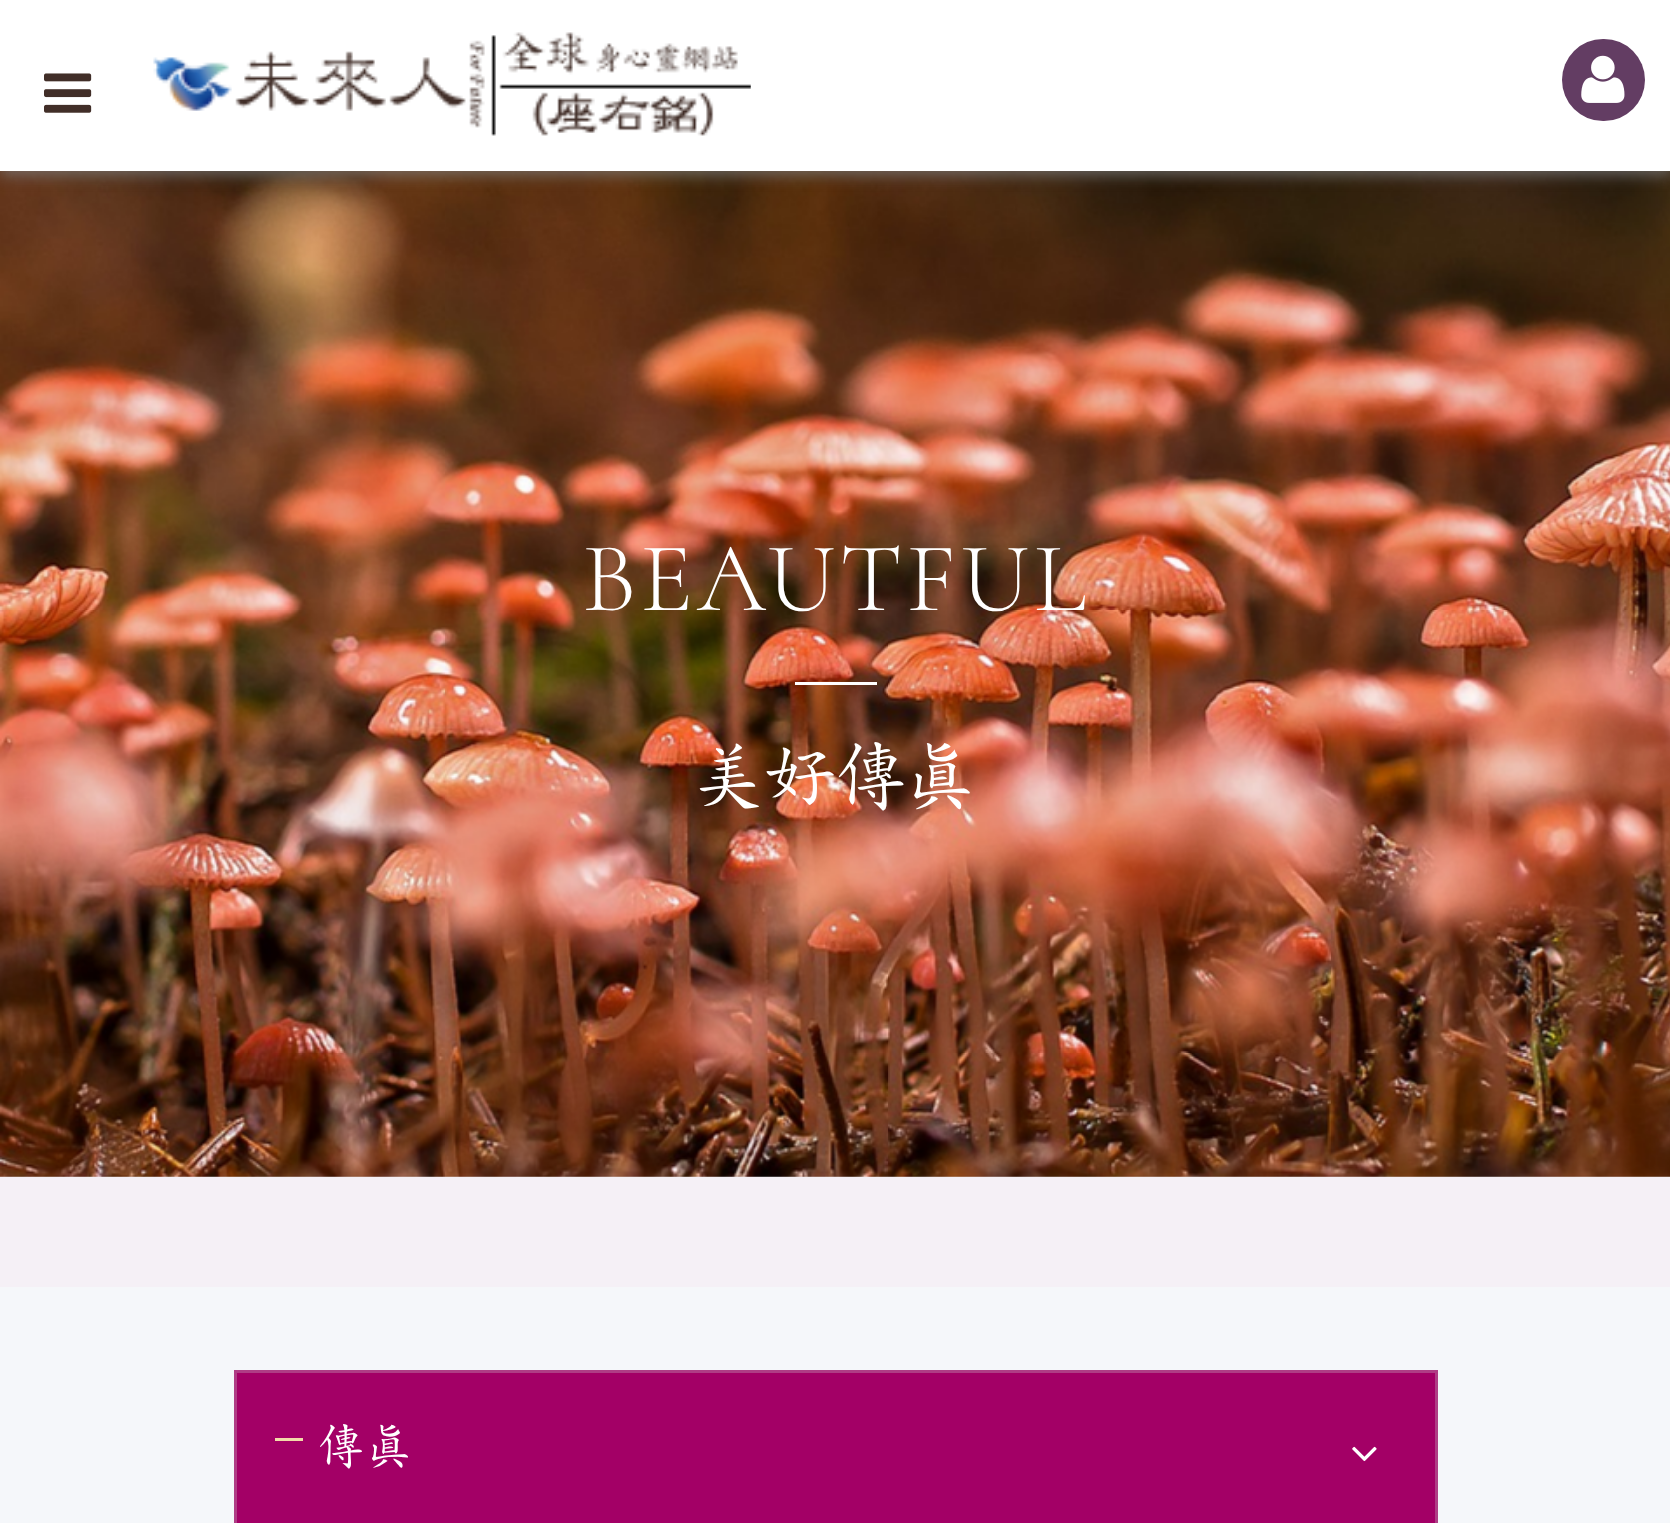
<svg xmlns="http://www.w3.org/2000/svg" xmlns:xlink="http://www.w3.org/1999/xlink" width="1670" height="1523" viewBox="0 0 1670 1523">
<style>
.cls-1{font:300 99px Cormorant;letter-spacing:4px;fill:#ffffff}
.cls-2{font:500 77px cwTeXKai;fill:#ffffff}
.cls-3{font:500 50px cwTeXKai;letter-spacing:3px;fill:#ffffff}
</style>
<rect width="100%" height="100%" fill="#f5f0f6"/>
<image xlink:href="image3.png" x="0" y="171" width="1670" height="1006"/>
<rect fill="#7e7e7e" fill-opacity="0.68" filter="blur(7px)" x="0" y="6" width="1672" height="170"/>
<rect fill="#ffffff" x="0" y="0" width="1670" height="171"/>
<image xlink:href="image0.png" x="44" y="73" width="48" height="40"/>
<image xlink:href="image1.png" x="153" y="32" width="598" height="104"/>
<rect fill="#633d63" x="1562" y="39" width="83" height="82" rx="41"/>
<image xlink:href="image2.png" x="1581" y="55" width="44" height="48"/>
<rect fill="#ffffff" x="795" y="682" width="82" height="3"/>
<rect fill="#f5f7fa" x="0" y="1287" width="1670" height="236"/>
<rect fill="#a30066" stroke="#af3d85" stroke-width="3" x="235.5" y="1371.5" width="1201" height="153"/>
<rect fill="#f2dba9" x="275" y="1438" width="28" height="3"/>
<image xlink:href="image4.png" x="1352" y="1446" width="25" height="16"/>
<text class="cls-1" x="582" y="610">BEAUTFUL</text>
<text class="cls-2" x="694" y="802">美好傳真</text>
<text class="cls-3" x="318" y="1463">傳真</text>
</svg>
